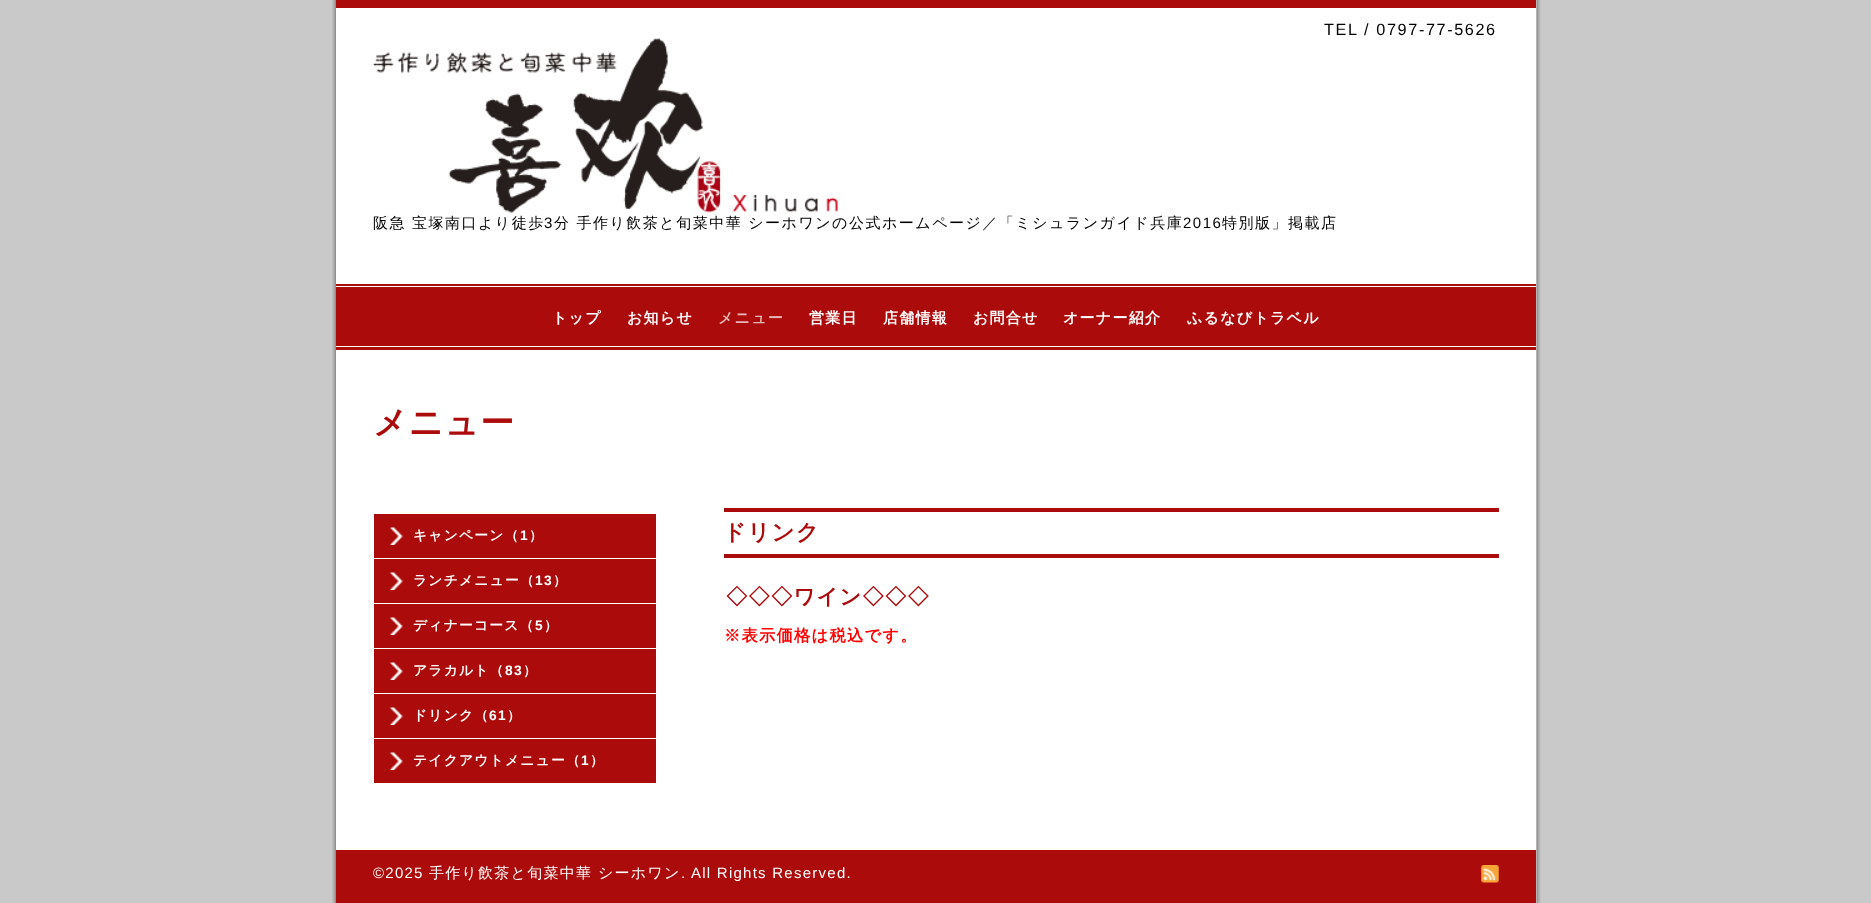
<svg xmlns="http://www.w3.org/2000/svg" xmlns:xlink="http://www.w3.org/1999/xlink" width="1871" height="903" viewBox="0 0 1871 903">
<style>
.cls-1{font:16.25px Liberation Sans;letter-spacing:1.6px;fill:#000000}
.cls-2{font:500 15px WenQuanYi Zen Hei;letter-spacing:1.5px;fill:#000000}
.cls-3{font:15px Liberation Sans;letter-spacing:1.5px;fill:#000000}
.cls-4{font:bold 15px WenQuanYi Zen Hei;letter-spacing:1.25px;fill:#ffffff}
.cls-5{font:bold 15px WenQuanYi Zen Hei;letter-spacing:1.25px;fill:#e6b6b6}
.cls-6{font:bold 33.75px WenQuanYi Zen Hei;letter-spacing:1.25px;fill:#ac0b0b}
.cls-7{font:bold 22.5px WenQuanYi Zen Hei;letter-spacing:1.25px;fill:#ac0b0b}
.cls-8{font:bold 21.25px WenQuanYi Zen Hei;letter-spacing:1.25px;fill:#ac0b0b}
.cls-9{font:bold 16.25px WenQuanYi Zen Hei;letter-spacing:1.25px;fill:#ff0000}
.cls-10{font:bold 13.75px WenQuanYi Zen Hei;letter-spacing:1.25px;fill:#ffffff}
.cls-11{font:bold 13.75px Liberation Sans;letter-spacing:1.25px;fill:#ffffff}
.cls-12{font:15px Liberation Sans;letter-spacing:1.25px;fill:#ffffff}
.cls-13{font:500 15px WenQuanYi Zen Hei;letter-spacing:1.25px;fill:#ffffff}
</style>
<rect width="100%" height="100%" fill="#c9c9c9"/>
<image xlink:href="image0.png" x="332" y="0" width="1209" height="903"/>
<rect fill="#ffffff" x="336" y="8" width="1" height="842"/>
<rect fill="#ac0b0b" x="336" y="0" width="1200" height="8"/>
<image xlink:href="image1.png" x="373" y="38" width="465" height="175"/>
<rect fill="#ac0b0b" x="336" y="284" width="1200" height="66"/>
<rect fill="#ffffff" x="336" y="286" width="1200" height="1"/>
<rect fill="#ffffff" x="336" y="346" width="1200" height="1"/>
<rect fill="#ac0b0b" x="724" y="508" width="775" height="4"/>
<rect fill="#ac0b0b" x="724" y="554" width="775" height="4"/>
<rect fill="#ac0b0b" x="374" y="514" width="282" height="44"/>
<image xlink:href="image2.png" x="389" y="527" width="14" height="18"/>
<rect fill="#ac0b0b" x="374" y="559" width="282" height="44"/>
<image xlink:href="image2.png" x="389" y="572" width="14" height="18"/>
<rect fill="#ac0b0b" x="374" y="604" width="282" height="44"/>
<image xlink:href="image2.png" x="389" y="617" width="14" height="18"/>
<rect fill="#ac0b0b" x="374" y="649" width="282" height="44"/>
<image xlink:href="image2.png" x="389" y="662" width="14" height="18"/>
<rect fill="#ac0b0b" x="374" y="694" width="282" height="44"/>
<image xlink:href="image2.png" x="389" y="707" width="14" height="18"/>
<rect fill="#ac0b0b" x="374" y="739" width="282" height="44"/>
<image xlink:href="image2.png" x="389" y="752" width="14" height="18"/>
<rect fill="#ac0b0b" x="336" y="850" width="1200" height="53"/>
<image xlink:href="image3.png" x="1481" y="865" width="18" height="18"/>
<text class="cls-1" x="1324" y="35">TEL / 0797-77-5626</text>
<text class="cls-2" x="373" y="228">阪急 宝塚南口より徒歩</text>
<text class="cls-3" x="544" y="228">3</text>
<text class="cls-2" x="554" y="228">分 手作り飲茶と旬菜中華 シーホワンの公式ホームページ／「ミシュランガイド兵庫</text>
<text class="cls-3" x="1183" y="228">2016</text>
<text class="cls-2" x="1222" y="228">特別版」掲載店</text>
<text class="cls-4" x="552" y="323">トップ</text>
<text class="cls-4" x="627" y="323">お知らせ</text>
<text class="cls-5" x="718" y="323">メニュー</text>
<text class="cls-4" x="809" y="323">営業日</text>
<text class="cls-4" x="883" y="323">店舗情報</text>
<text class="cls-4" x="973" y="323">お問合せ</text>
<text class="cls-4" x="1063" y="323">オーナー紹介</text>
<text class="cls-4" x="1187" y="323">ふるなびトラベル</text>
<text class="cls-6" x="373" y="434">メニュー</text>
<text class="cls-7" x="723" y="540">ドリンク</text>
<text class="cls-8" x="726" y="604">◇◇◇ワイン◇◇◇</text>
<text class="cls-9" x="724" y="641">※表示価格は税込です。</text>
<text class="cls-10" x="413" y="540">キャンペーン（</text>
<text class="cls-11" x="520" y="540">1</text>
<text class="cls-10" x="529" y="540">）</text>
<text class="cls-10" x="413" y="585">ランチメニュー（</text>
<text class="cls-11" x="535" y="585">13</text>
<text class="cls-10" x="553" y="585">）</text>
<text class="cls-10" x="413" y="630">ディナーコース（</text>
<text class="cls-11" x="535" y="630">5</text>
<text class="cls-10" x="544" y="630">）</text>
<text class="cls-10" x="413" y="675">アラカルト（</text>
<text class="cls-11" x="505" y="675">83</text>
<text class="cls-10" x="523" y="675">）</text>
<text class="cls-10" x="413" y="720">ドリンク（</text>
<text class="cls-11" x="489" y="720">61</text>
<text class="cls-10" x="507" y="720">）</text>
<text class="cls-10" x="413" y="765">テイクアウトメニュー（</text>
<text class="cls-11" x="581" y="765">1</text>
<text class="cls-10" x="590" y="765">）</text>
<text class="cls-12" x="373" y="878">©2025</text>
<text class="cls-13" x="429" y="878">手作り飲茶と旬菜中華 シーホワン</text>
<text class="cls-12" x="681" y="878">. All Rights Reserved.</text>
</svg>
